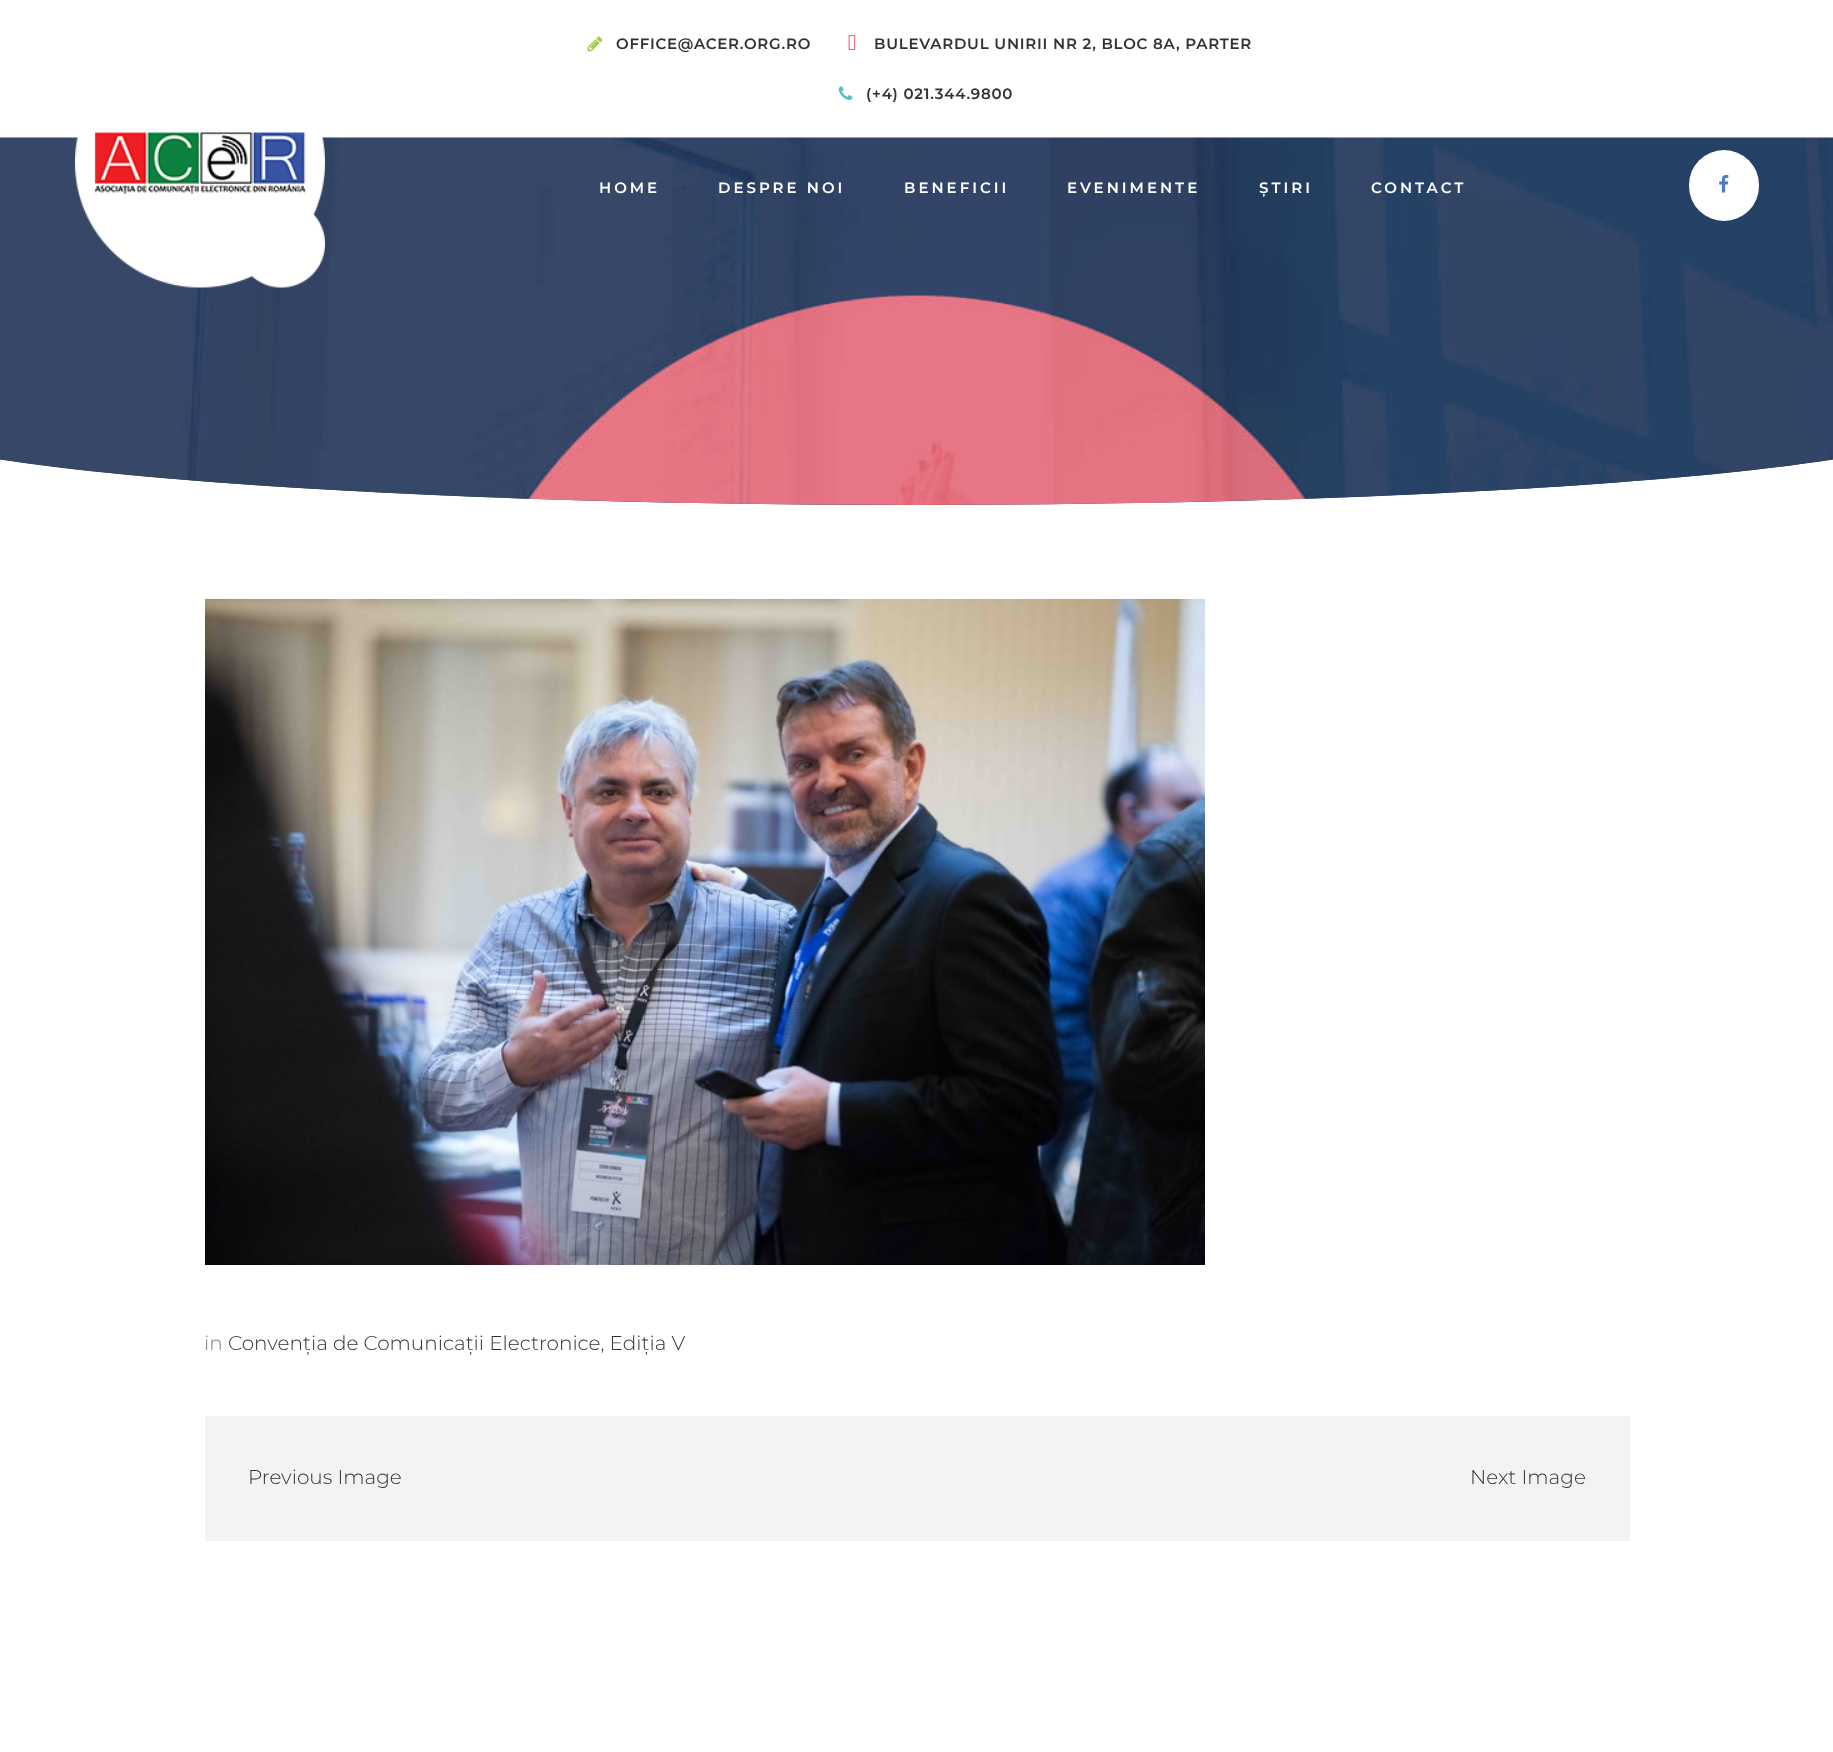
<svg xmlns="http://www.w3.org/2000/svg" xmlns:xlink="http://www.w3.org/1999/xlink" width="1833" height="1752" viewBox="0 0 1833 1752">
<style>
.cls-1{font:600 15px Montserrat;letter-spacing:0.75px;fill:#323232}
.cls-2{font:600 15px Montserrat;letter-spacing:3px;fill:#ffffff}
.cls-3{font:300 20px Montserrat;fill:#818181}
.cls-4{font:300 20px Montserrat;fill:#323232}
</style>
<rect width="100%" height="100%" fill="#ffffff"/>
<image xlink:href="image0.png" x="587" y="36" width="16" height="16"/>
<image xlink:href="image1.png" x="848" y="35" width="8" height="15"/>
<image xlink:href="image2.png" x="838" y="86" width="15" height="14"/>
<path fill="#1f3258" d="M-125 138H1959V418C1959 466 1492 505 917 505C341 505-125 466-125 418Z"/>
<image xlink:href="image3.png" x="0" y="137" width="1833" height="368"/>
<image xlink:href="image4.png" x="75" y="132" width="250" height="156"/>
<rect fill="#ffffff" x="1689" y="150" width="70" height="71" rx="35"/>
<image xlink:href="image5.png" x="1719" y="175" width="10" height="18"/>
<image xlink:href="image6.png" x="205" y="598" width="1000" height="667"/>
<rect fill="#f1f3f5" x="205" y="1416" width="1425" height="125"/>
<text class="cls-1" x="616" y="49">OFFICE@ACER.ORG.RO</text>
<text class="cls-1" x="874" y="49">BULEVARDUL UNIRII NR 2, BLOC 8A, PARTER</text>
<text class="cls-1" x="866" y="99">(+4) 021.344.9800</text>
<text class="cls-2" x="599" y="193">HOME</text>
<text class="cls-2" x="718" y="193">DESPRE NOI</text>
<text class="cls-2" x="904" y="193">BENEFICII</text>
<text class="cls-2" x="1067" y="193">EVENIMENTE</text>
<text class="cls-2" x="1259" y="193">ȘTIRI</text>
<text class="cls-2" x="1371" y="193">CONTACT</text>
<text class="cls-3" x="204" y="1350">in</text>
<text class="cls-4" x="228" y="1350">Convenția de Comunicații Electronice, Ediția V</text>
<text class="cls-4" x="248" y="1484">Previous Image</text>
<text class="cls-4" x="1470" y="1484">Next Image</text>
</svg>
